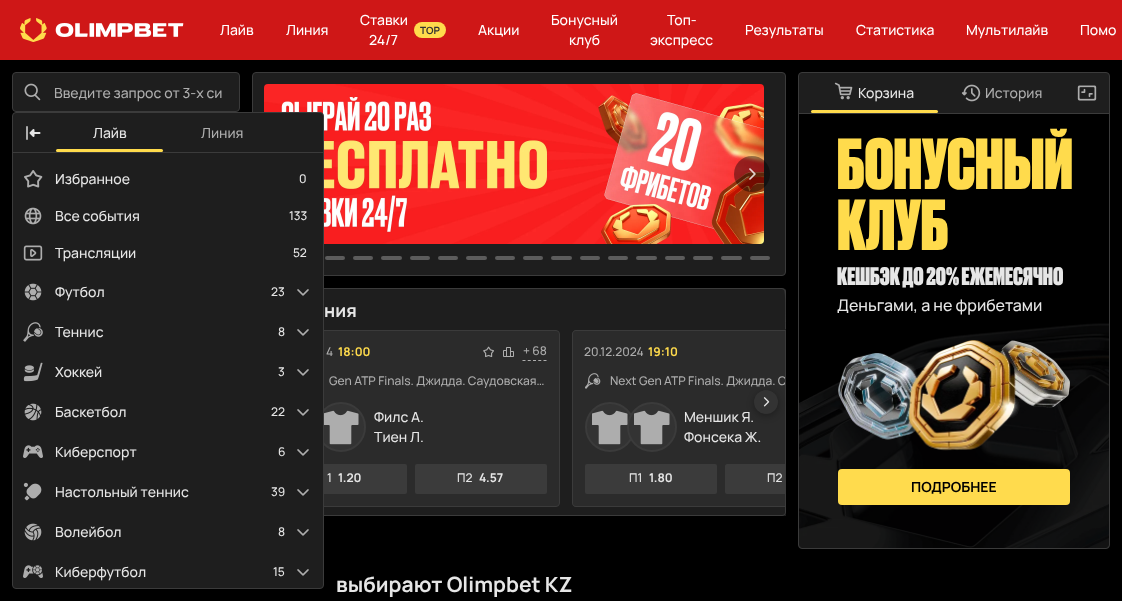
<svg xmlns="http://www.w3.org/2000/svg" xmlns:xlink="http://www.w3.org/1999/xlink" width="1122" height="601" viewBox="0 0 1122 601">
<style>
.cls-1{font:500 14px Manrope;fill:#ffffff}
.cls-2{font:bold 10px Manrope;fill:#333333}
.cls-3{font:500 14px Manrope;fill:#adadad}
.cls-4{font:500 14px Manrope;fill:#e6e6e6}
.cls-5{font:500 12px Manrope;fill:#e6e6e6}
.cls-6{font:bold 18px Manrope;fill:#e6e6e6}
.cls-7{font:500 12px Manrope;fill:#adadad}
.cls-8{font:bold 12px Manrope;fill:#ffdb4c}
.cls-9{font:bold 12px Manrope;fill:#e6e6e6}
.cls-10{font:bold 21px Manrope;fill:#e6e6e6}
.cls-11{font:900 68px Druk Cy;fill:#ffdb4c}
.cls-12{font:900 24px Druk Cy;fill:#e6e6e6}
.cls-13{font:500 16px Manrope;fill:#e6e6e6}
.cls-14{font:bold 14px Manrope;fill:#000000}
</style>
<defs>
<clipPath id="clip1"><path d="M253 330H785V512C785 513.5 783.5 515 782 515H256C254.5 515 253 513.5 253 512Z"/></clipPath>
</defs>
<rect width="100%" height="100%" fill="#000000"/>
<rect fill="#cf1717" x="0" y="0" width="1122" height="60"/>
<image xlink:href="image0.png" x="20" y="18" width="164" height="24"/>
<rect fill="#ffdb4c" x="414" y="22" width="32" height="16" rx="8"/>
<rect fill="#1e1e1e" stroke="#3b3b3b" x="12.5" y="72.5" width="227" height="39" rx="3.5"/>
<image xlink:href="image1.png" x="24" y="83" width="17" height="18"/>
<rect fill="#1e1e1e" stroke="#3b3b3b" x="252.5" y="72.5" width="533" height="203" rx="3.5"/>
<image xlink:href="image15.png" x="264" y="84" width="500" height="160"/>
<path fill="#1e1e1e" d="M256 288H782C784 288 786 290 786 292V330H252V292C252 290 254 288 256 288Z"/>
<path fill="#3b3b3b" d="M256 288L253 289L254 290L256 289H782L784 290L785 289L782 288Z"/>
<path fill="#3b3b3b" d="M786 330V292C786 291 786 290 785 289L784 290C786 292 785 324 785 329Z"/>
<path fill="#1e1e1e" d="M786 330L785 329H253L252 330Z"/>
<rect fill="#1e1e1e" x="324" y="330" width="462" height="186"/>
<path fill="#3b3b3b" fill-rule="evenodd" d="M252 330H786V512C786 514 784 516 782 516H256C254 516 252 514 252 512ZM253 330H785V512C785 514 784 515 782 515H256C254 515 253 514 253 512Z"/>
<rect fill="#2b2b2b" stroke="#3b3b3b" x="261.5" y="330.5" width="298" height="176" rx="3.5"/>
<circle fill="#333333" stroke="#3b3b3b" stroke-width="2" cx="341" cy="427" r="24"/>
<rect fill="#3b3b3b" x="274" y="464" width="133" height="30" rx="2"/>
<rect fill="#1e1e1e" stroke="#3b3b3b" x="12.5" y="112.5" width="311" height="476" rx="3.5"/>
<rect fill="#3b3b3b" x="13" y="152" width="310" height="1"/>
<image xlink:href="image2.png" x="26" y="126" width="15" height="14"/>
<rect fill="#ffdb4c" x="56" y="149" width="107" height="3" rx="1.5"/>
<image xlink:href="image3.png" x="24" y="170" width="19" height="18"/>
<image xlink:href="image4.png" x="24" y="207" width="18" height="18"/>
<image xlink:href="image5.png" x="23" y="245" width="20" height="16"/>
<image xlink:href="image6.png" x="24" y="283" width="18" height="18"/>
<image xlink:href="image7.png" x="297" y="289" width="12" height="7"/>
<image xlink:href="image8.png" x="23" y="322" width="20" height="20"/>
<image xlink:href="image7.png" x="297" y="329" width="12" height="7"/>
<image xlink:href="image9.png" x="23" y="362" width="20" height="20"/>
<image xlink:href="image7.png" x="297" y="369" width="12" height="7"/>
<image xlink:href="image10.png" x="24" y="403" width="18" height="18"/>
<image xlink:href="image7.png" x="297" y="409" width="12" height="7"/>
<image xlink:href="image11.png" x="23" y="445" width="20" height="13"/>
<image xlink:href="image7.png" x="297" y="449" width="12" height="7"/>
<image xlink:href="image12.png" x="23" y="482" width="19" height="19"/>
<image xlink:href="image7.png" x="297" y="489" width="12" height="7"/>
<image xlink:href="image13.png" x="24" y="523" width="18" height="18"/>
<image xlink:href="image7.png" x="297" y="529" width="12" height="7"/>
<image xlink:href="image14.png" x="23" y="565" width="20" height="13"/>
<image xlink:href="image7.png" x="297" y="569" width="12" height="7"/>
<circle fill="#000000" fill-opacity="0.4" cx="752" cy="174" r="18"/>
<image xlink:href="image16.png" x="749" y="168" width="7" height="12"/>
<rect fill="#5c5c5c" x="325" y="256" width="20" height="4" rx="2"/>
<rect fill="#5c5c5c" x="353" y="256" width="20" height="4" rx="2"/>
<rect fill="#5c5c5c" x="381" y="256" width="21" height="4" rx="2"/>
<rect fill="#5c5c5c" x="410" y="256" width="20" height="4" rx="2"/>
<rect fill="#5c5c5c" x="438" y="256" width="20" height="4" rx="2"/>
<rect fill="#5c5c5c" x="466" y="256" width="21" height="4" rx="2"/>
<rect fill="#5c5c5c" x="495" y="256" width="20" height="4" rx="2"/>
<rect fill="#5c5c5c" x="523" y="256" width="20" height="4" rx="2"/>
<rect fill="#5c5c5c" x="551" y="256" width="21" height="4" rx="2"/>
<rect fill="#5c5c5c" x="580" y="256" width="20" height="4" rx="2"/>
<rect fill="#5c5c5c" x="608" y="256" width="20" height="4" rx="2"/>
<rect fill="#5c5c5c" x="636" y="256" width="21" height="4" rx="2"/>
<rect fill="#5c5c5c" x="665" y="256" width="20" height="4" rx="2"/>
<rect fill="#5c5c5c" x="693" y="256" width="20" height="4" rx="2"/>
<rect fill="#5c5c5c" x="721" y="256" width="21" height="4" rx="2"/>
<rect fill="#5c5c5c" x="750" y="256" width="20" height="4" rx="2"/>
<image xlink:href="image17.png" x="483" y="346" width="11" height="12"/>
<image xlink:href="image18.png" x="503" y="347" width="11" height="10"/>
<path fill="none" stroke="#adadad" stroke-dasharray="3 2.25" d="M522.5 360.5H546.5"/>
<image xlink:href="image19.png" x="324" y="410" width="35" height="35"/>
<rect fill="#3b3b3b" x="415" y="464" width="132" height="30" rx="2"/>
<path fill="#2b2b2b" d="M576 330H785V507H576C574 507 572 505 572 503V334C572 332 574 330 576 330Z"/>
<path fill="#3b3b3b" d="M576 330C574 330 572 332 572 334V503C572 505 574 507 576 507H785V506H576C574 506 573 505 573 503V334C573 332 574 331 576 331H785V330Z"/>
<image xlink:href="image20.png" x="585" y="373" width="16" height="16"/>
<circle fill="#333333" stroke="#3b3b3b" stroke-width="2" cx="610" cy="427" r="24"/>
<circle fill="#333333" stroke="#3b3b3b" stroke-width="2" cx="652" cy="427" r="24"/>
<image xlink:href="image21.png" x="592" y="410" width="36" height="35"/>
<image xlink:href="image22.png" x="634" y="410" width="36" height="35"/>
<rect fill="#3b3b3b" x="585" y="464" width="132" height="30" rx="2"/>
<path fill="#3b3b3b" d="M727 464H785V494H727C726 494 725 493 725 492V466C725 465 726 464 727 464Z"/>
<rect fill="#000000" fill-opacity="0.3" filter="blur(3.5px)" x="754" y="392" width="24" height="24" rx="12"/>
<circle fill="#333333" cx="766" cy="402" r="12"/>
<image xlink:href="image23.png" x="763" y="397" width="7" height="10"/>
<rect fill="#1e1e1e" stroke="#3b3b3b" x="798.5" y="72.5" width="311" height="476" rx="3.5"/>
<rect fill="#3b3b3b" x="799" y="113" width="310" height="1"/>
<image xlink:href="image24.png" x="834" y="82" width="19" height="18"/>
<rect fill="#ffdb4c" x="811" y="110" width="127" height="3" rx="1.5"/>
<image xlink:href="image25.png" x="961" y="84" width="20" height="18"/>
<image xlink:href="image26.png" x="1077" y="85" width="20" height="16"/>
<path fill="#000000" d="M799 114H1109V544C1109 546 1107 548 1105 548H803C801 548 799 546 799 544Z"/>
<image xlink:href="image27.png" x="799" y="323" width="310" height="225"/>
<image xlink:href="image28.png" x="838" y="340" width="232" height="111"/>
<rect fill="#ffdb4d" x="838" y="469" width="232" height="36" rx="4"/>
<text class="cls-1" x="220" y="35">Лайв</text>
<text class="cls-1" x="286" y="35">Линия</text>
<text class="cls-1" x="360" y="25">Ставки</text>
<text class="cls-2" x="420" y="34">TOP</text>
<text class="cls-1" x="369" y="45">24/7</text>
<text class="cls-1" x="478" y="35">Акции</text>
<text class="cls-1" x="551" y="25">Бонусный</text>
<text class="cls-1" x="569" y="45">клуб</text>
<text class="cls-1" x="667" y="25">Топ-</text>
<text class="cls-1" x="650" y="45">экспресс</text>
<text class="cls-1" x="745" y="35">Результаты</text>
<text class="cls-1" x="856" y="35">Статистика</text>
<text class="cls-1" x="966" y="35">Мультилайв</text>
<text class="cls-1" x="1080" y="35">Помо</text>
<text class="cls-3" x="54" y="98">Введите запрос от 3-х си</text>
<text class="cls-4" x="93" y="138">Лайв</text>
<text class="cls-3" x="201" y="138">Линия</text>
<text class="cls-4" x="55" y="184">Избранное</text>
<text class="cls-5" x="299" y="183">0</text>
<text class="cls-4" x="55" y="221">Все события</text>
<text class="cls-5" x="289" y="220">133</text>
<text class="cls-4" x="55" y="258">Трансляции</text>
<text class="cls-5" x="293" y="257">52</text>
<text class="cls-4" x="55" y="297">Футбол</text>
<text class="cls-5" x="271" y="296">23</text>
<text class="cls-4" x="55" y="337">Теннис</text>
<text class="cls-5" x="278" y="336">8</text>
<text class="cls-4" x="55" y="377">Хоккей</text>
<text class="cls-5" x="278" y="376">3</text>
<text class="cls-4" x="55" y="417">Баскетбол</text>
<text class="cls-5" x="271" y="416">22</text>
<text class="cls-4" x="55" y="457">Киберспорт</text>
<text class="cls-5" x="278" y="456">6</text>
<text class="cls-4" x="55" y="497">Настольный теннис</text>
<text class="cls-5" x="271" y="496">39</text>
<text class="cls-4" x="55" y="537">Волейбол</text>
<text class="cls-5" x="278" y="536">8</text>
<text class="cls-4" x="55" y="577">Киберфутбол</text>
<text class="cls-5" x="273" y="576">15</text>
<text class="cls-6" x="324" y="317">ния</text>
<text class="cls-7" x="326" y="356">4</text>
<text class="cls-8" x="338" y="356">18:00</text>
<text class="cls-7" x="523" y="355">+ 68</text>
<text class="cls-7" x="329" y="385">Gen ATP Finals. Джидда. Саудовская…</text>
<text class="cls-4"><tspan x="374" y="422">Филс А.</tspan><tspan x="374" y="442">Тиен Л.</tspan></text>
<text class="cls-5" x="327" y="482">1</text>
<text class="cls-9" x="338" y="482">1.20</text>
<text class="cls-5" x="457" y="482">П2</text>
<text class="cls-9" x="479" y="482">4.57</text>
<text class="cls-7" x="584" y="356">20.12.2024</text>
<text class="cls-8" x="648" y="356">19:10</text>
<g clip-path="url(#clip1)">
<text class="cls-7" x="610" y="385">Next Gen ATP Finals. Джидда. С</text>
</g>
<text class="cls-4"><tspan x="684" y="422">Меншик Я.</tspan><tspan x="684" y="442">Фонсека Ж.</tspan></text>
<text class="cls-5" x="629" y="482">П1</text>
<text class="cls-9" x="649" y="482">1.80</text>
<text class="cls-5" x="767" y="482">П2</text>
<text class="cls-10" x="336" y="592">выбирают Olimpbet KZ</text>
<text class="cls-4" x="858" y="98">Корзина</text>
<text class="cls-3" x="985" y="98">История</text>
<text class="cls-11"><tspan x="837" y="189">БОНУСНЫЙ</tspan><tspan x="837" y="250">КЛУБ</tspan></text>
<text class="cls-12" x="837" y="285">КЕШБЭК ДО 20% ЕЖЕМЕСЯЧНО</text>
<text class="cls-13" x="837" y="311">Деньгами, а не фрибетами</text>
<text class="cls-14" x="911" y="492">ПОДРОБНЕЕ</text>
</svg>
